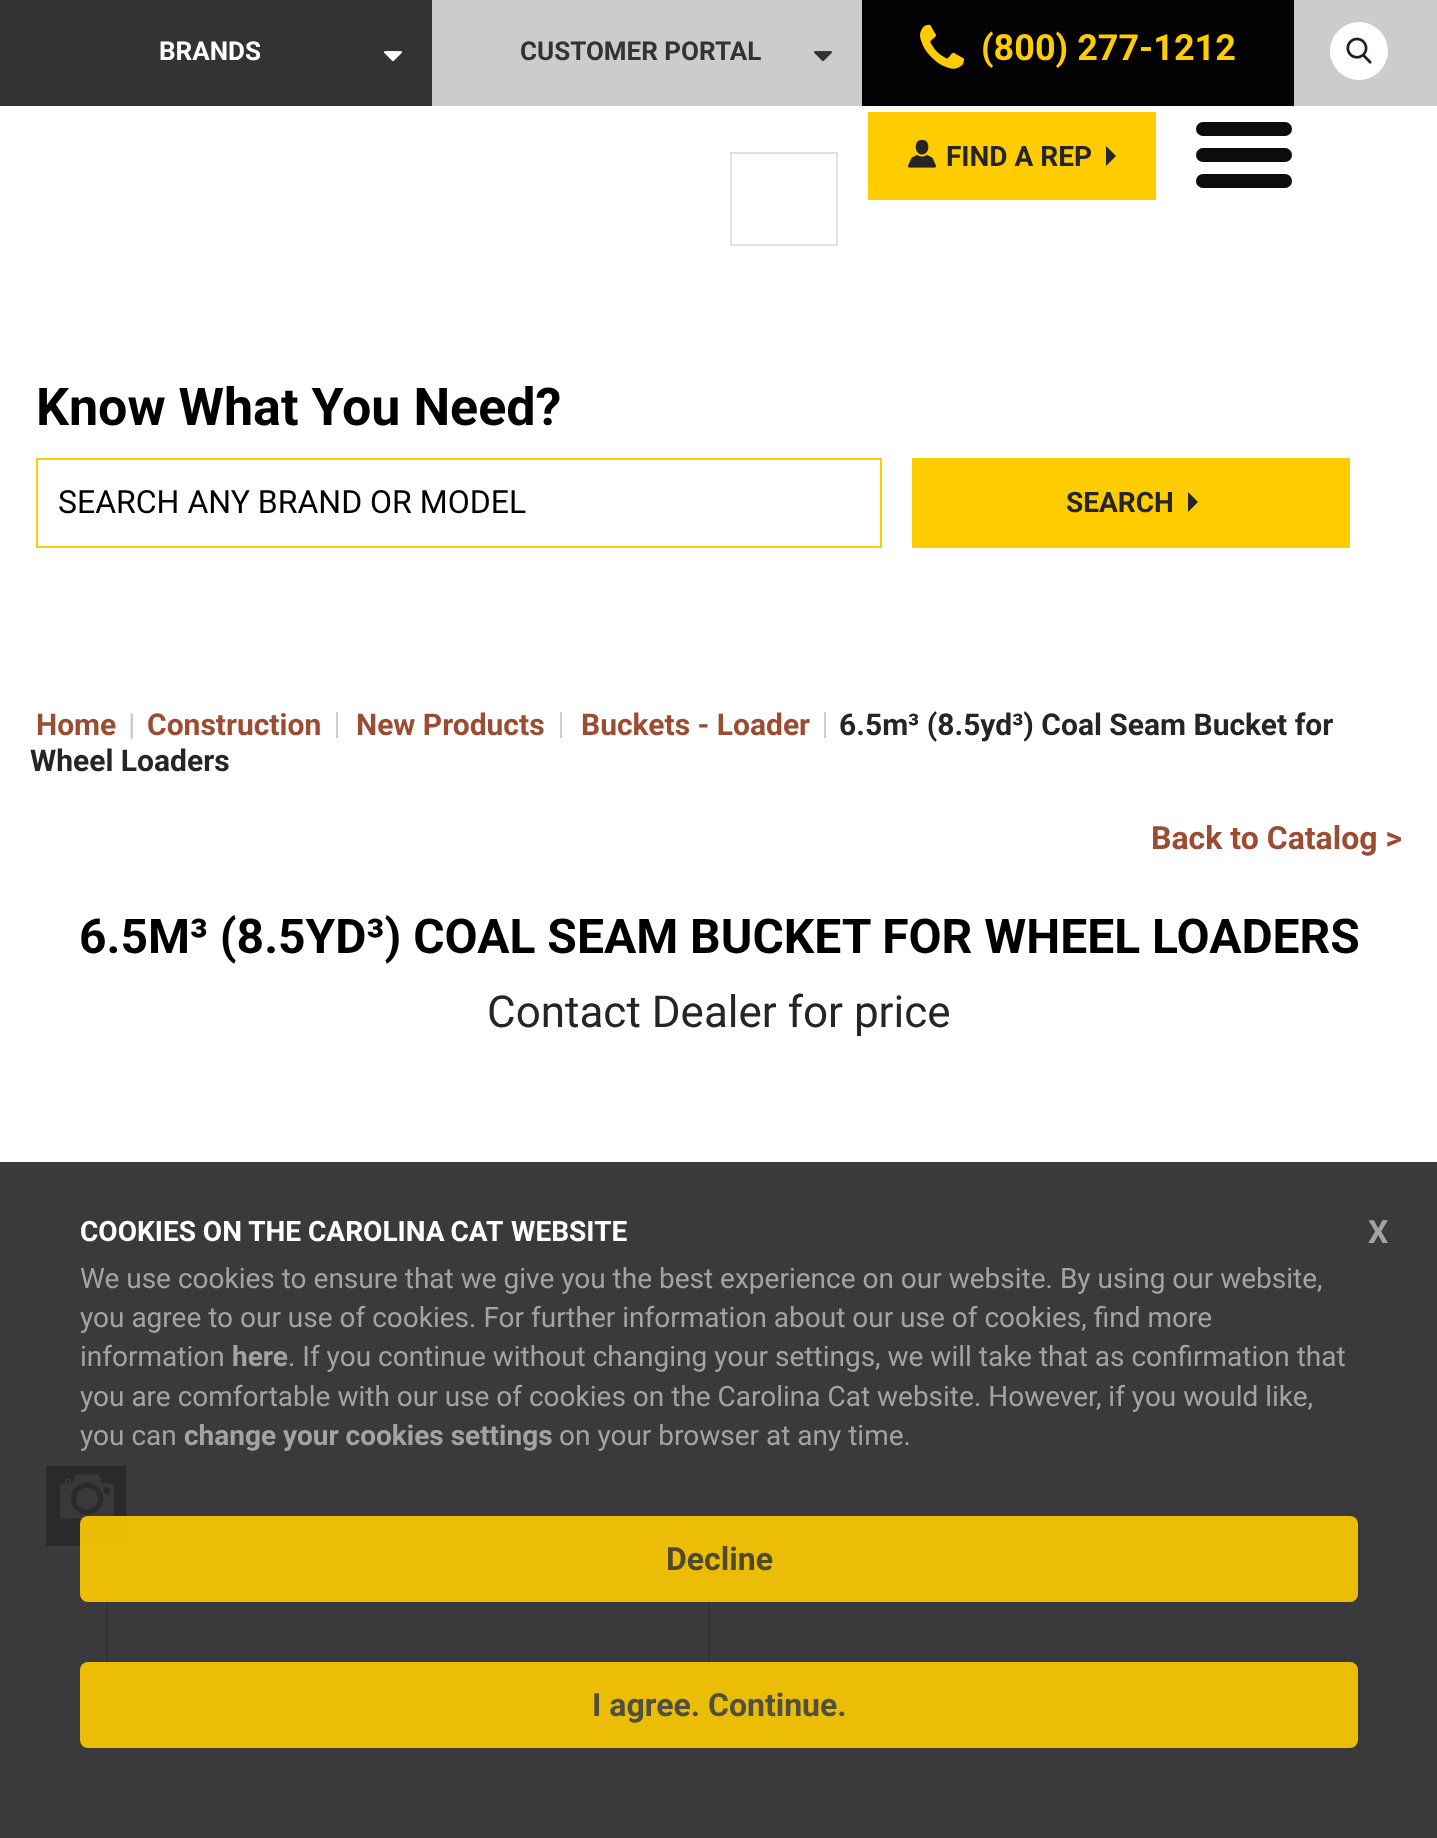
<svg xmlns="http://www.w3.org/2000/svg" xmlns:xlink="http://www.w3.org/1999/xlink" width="1437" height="1838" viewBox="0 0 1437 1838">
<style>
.cls-1{font:bold 26px Roboto;fill:#ffffff}
.cls-2{font:bold 26px Roboto;fill:#333333}
.cls-3{font:bold 36px Roboto;fill:#ffcc00}
.cls-4{font:bold 28px Roboto;fill:#252526}
.cls-5{font:bold 52px Roboto;fill:#000000}
.cls-6{font:32px Roboto;fill:#000000}
.cls-7{font:bold 30px Roboto;fill:#9b4c32}
.cls-8{font:bold 30px Roboto;fill:#cccccc}
.cls-9{font:bold 30px Roboto;fill:#252526}
.cls-10{font:bold 32px Roboto;fill:#9b4c32}
.cls-11{font:bold 48px Roboto;fill:#000000}
.cls-12{font:44px Roboto;fill:#252526}
.cls-13{font:bold 28px Roboto;fill:#ffffff}
.cls-14{font:28px Roboto;fill:#a3a3a3}
.cls-15{font:bold 28px Roboto;fill:#a3a3a3}
.cls-16{font:bold 32px Roboto;fill:#a3a3a3}
.cls-17{font:bold 32px Roboto;fill:#4e4926}
.cls-18{font:bold 32px Roboto;fill:#50503f}
</style>
<rect width="100%" height="100%" fill="#ffffff"/>
<rect fill="#3a3a3d" x="0" y="1162" width="1437" height="676"/>
<rect fill="#cccccc" x="432" y="0" width="1005" height="106"/>
<rect fill="#333333" x="0" y="0" width="432" height="106"/>
<image xlink:href="image0.png" x="384" y="51" width="18" height="11"/>
<image xlink:href="image1.png" x="814" y="51" width="18" height="11"/>
<rect fill="#020202" x="862" y="0" width="432" height="106"/>
<image xlink:href="image2.png" x="920" y="24" width="44" height="45"/>
<circle fill="#ffffff" cx="1359" cy="51" r="29"/>
<image xlink:href="image3.png" x="1346" y="37" width="26" height="27"/>
<rect fill="#ffcc00" x="868" y="112" width="288" height="88"/>
<image xlink:href="image4.png" x="908" y="139" width="28" height="29"/>
<path fill="#252526" d="M1106 166V146L1116 156Z"/>
<rect fill="#0c0c0c" x="1196" y="122" width="96" height="14" rx="7"/>
<rect fill="#0c0c0c" x="1196" y="148" width="96" height="14" rx="7"/>
<rect fill="#0c0c0c" x="1196" y="174" width="96" height="14" rx="7"/>
<rect fill="none" stroke="#e0e0e0" stroke-width="2" x="731" y="153" width="106" height="92"/>
<rect fill="none" stroke="#ffcc00" stroke-width="2" x="37" y="459" width="844" height="88"/>
<rect fill="#ffcc00" x="912" y="458" width="438" height="90"/>
<path fill="#252526" d="M1188 512V492L1198 502Z"/>
<rect fill="#cccccc" x="336" y="712" width="2" height="26"/>
<rect fill="#cccccc" x="560" y="712" width="2" height="26"/>
<rect fill="#cccccc" x="824" y="712" width="2" height="26"/>
<rect fill="#2a2a2d" x="46" y="1466" width="80" height="80"/>
<image xlink:href="image5.png" x="60" y="1474" width="54" height="45"/>
<rect fill="none" stroke="#353538" stroke-width="2" x="107" y="1589" width="602" height="98"/>
<rect fill="#ffcc00" fill-opacity="0.9" x="80" y="1516" width="1278" height="86" rx="8"/>
<rect fill="#ffcc00" fill-opacity="0.9" x="80" y="1662" width="1278" height="86" rx="8"/>
<text class="cls-1" x="159" y="60">BRANDS</text>
<text class="cls-2" x="520" y="60">CUSTOMER PORTAL</text>
<text class="cls-3" x="981" y="60">(800) 277-1212</text>
<text class="cls-4" x="946" y="166">FIND A REP</text>
<text class="cls-5" x="36" y="425">Know What You Need?</text>
<text class="cls-6" x="58" y="513">SEARCH ANY BRAND OR MODEL</text>
<text class="cls-4" x="1066" y="512">SEARCH</text>
<text class="cls-7" x="36" y="735">Home</text>
<text class="cls-8" x="128" y="735">|</text>
<text class="cls-7" x="147" y="735">Construction</text>
<text class="cls-7" x="356" y="735">New Products</text>
<text class="cls-7" x="581" y="735">Buckets - Loader</text>
<text class="cls-9" x="839" y="735">6.5m³ (8.5yd³) Coal Seam Bucket for</text>
<text class="cls-9" x="30" y="771">Wheel Loaders</text>
<text class="cls-10" x="1151" y="849">Back to Catalog &gt;</text>
<text class="cls-11" x="79" y="953">6.5M³ (8.5YD³) COAL SEAM BUCKET FOR WHEEL LOADERS</text>
<text class="cls-12" x="487" y="1027">Contact Dealer for price</text>
<text class="cls-13" x="80" y="1241">COOKIES ON THE</text>
<text class="cls-13" x="308" y="1241" word-spacing="-1">CAROLINA CAT</text>
<text class="cls-13" x="511" y="1241">WEBSITE</text>
<text class="cls-14"><tspan x="80" y="1288">We use cookies to ensure that we give you the best experience on our website. By using our website,</tspan><tspan x="80" y="1327">you agree to our use of cookies. For further information about our use of cookies, find more</tspan><tspan x="80" y="1366">information</tspan></text>
<text class="cls-15" x="232" y="1366">here</text>
<text class="cls-14" x="288" y="1366">. If you continue without changing your settings, we will take that as confirmation that</text>
<text class="cls-14"><tspan x="80" y="1406">you are comfortable with our use of cookies on the Carolina Cat website. However, if you would like,</tspan><tspan x="80" y="1445">you can</tspan></text>
<text class="cls-15" x="184" y="1445">change your cookies settings</text>
<text class="cls-14" x="559" y="1445">on your browser at any time.</text>
<text class="cls-16" x="1368" y="1243">X</text>
<text class="cls-17" x="666" y="1570">Decline</text>
<text class="cls-18" x="592" y="1716">I agree. Continue.</text>
</svg>
